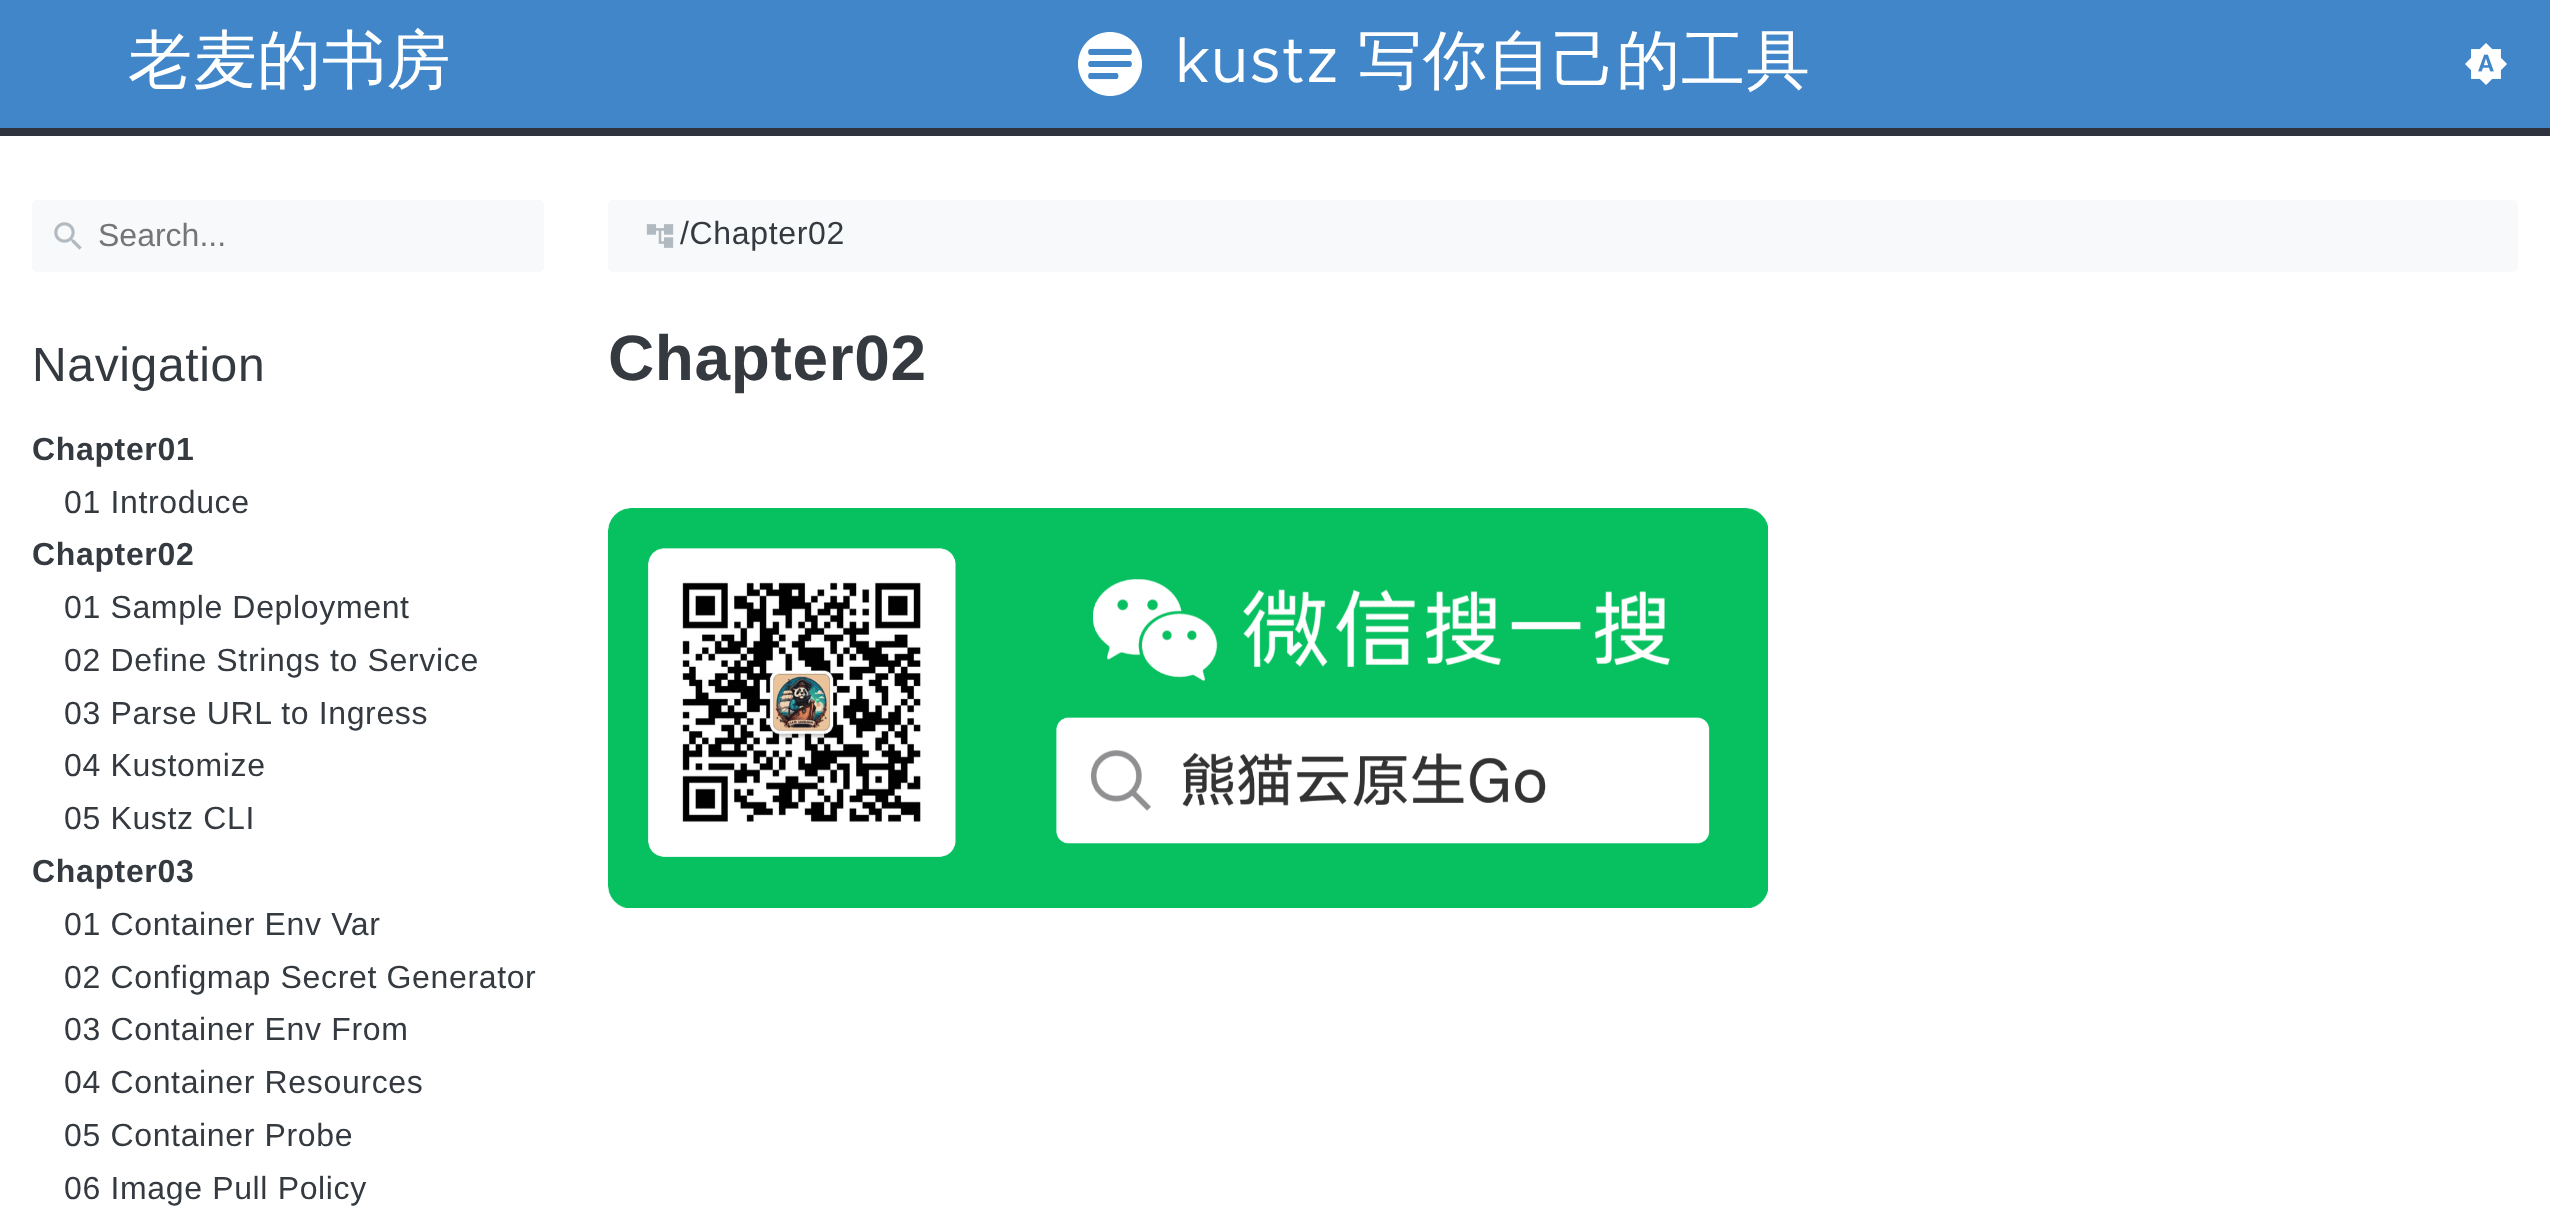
<svg xmlns="http://www.w3.org/2000/svg" xmlns:xlink="http://www.w3.org/1999/xlink" width="2550" height="1229" viewBox="0 0 2550 1229">
<style>
.cls-1{font:500 64px WenQuanYi Zen Hei;letter-spacing:0.65px;fill:#ffffff}
.cls-2{font:64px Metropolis;letter-spacing:0.65px;fill:#ffffff}
.cls-3{font:32px Liberation Sans;fill:#757575}
.cls-4{font:48px Liberation Sans;letter-spacing:0.65px;fill:#343a40}
.cls-5{font:bold 32px Liberation Sans;letter-spacing:0.65px;fill:#343a40}
.cls-6{font:32px Liberation Sans;letter-spacing:0.65px;fill:#343a40}
.cls-7{font:bold 64px Liberation Sans;letter-spacing:0.65px;fill:#343a40}
</style>
<rect width="100%" height="100%" fill="#ffffff"/>
<rect fill="#4186c9" x="0" y="0" width="2550" height="128"/>
<rect fill="#2f333e" x="0" y="128" width="2550" height="8"/>
<image xlink:href="image0.png" x="1078" y="32" width="64" height="64"/>
<image xlink:href="image1.png" x="2465" y="43" width="42" height="42"/>
<rect fill="#f8f9fa" x="32" y="200" width="512" height="72" rx="5"/>
<image xlink:href="image2.png" x="54" y="222" width="28" height="28"/>
<rect fill="#f8f9fa" x="608" y="200" width="1910" height="72" rx="5"/>
<image xlink:href="image3.png" x="646" y="224" width="28" height="24"/>
<image xlink:href="image4.png" x="608" y="508" width="1160" height="400"/>
<text class="cls-1" x="128" y="82">老麦的书房</text>
<text class="cls-2" x="1175" y="82">kustz</text>
<text class="cls-1" x="1358" y="82">写你自己的工具</text>
<text class="cls-3" x="98" y="246">Search...</text>
<text class="cls-4" x="32" y="381">Navigation</text>
<text class="cls-5" x="32" y="460">Chapter01</text>
<text class="cls-6" x="64" y="513">01 Introduce</text>
<text class="cls-5" x="32" y="565">Chapter02</text>
<text class="cls-6"><tspan x="64" y="618">01 Sample Deployment</tspan><tspan x="64" y="671">02 Define Strings to Service</tspan><tspan x="64" y="724">03 Parse URL to Ingress</tspan><tspan x="64" y="776">04 Kustomize</tspan><tspan x="64" y="829">05 Kustz CLI</tspan></text>
<text class="cls-5" x="32" y="882">Chapter03</text>
<text class="cls-6"><tspan x="64" y="935">01 Container Env Var</tspan><tspan x="64" y="988">02 Configmap Secret Generator</tspan><tspan x="64" y="1040">03 Container Env From</tspan><tspan x="64" y="1093">04 Container Resources</tspan><tspan x="64" y="1146">05 Container Probe</tspan><tspan x="64" y="1199">06 Image Pull Policy</tspan></text>
<text class="cls-6" x="680" y="244">/Chapter02</text>
<text class="cls-7" x="608" y="380">Chapter02</text>
</svg>
